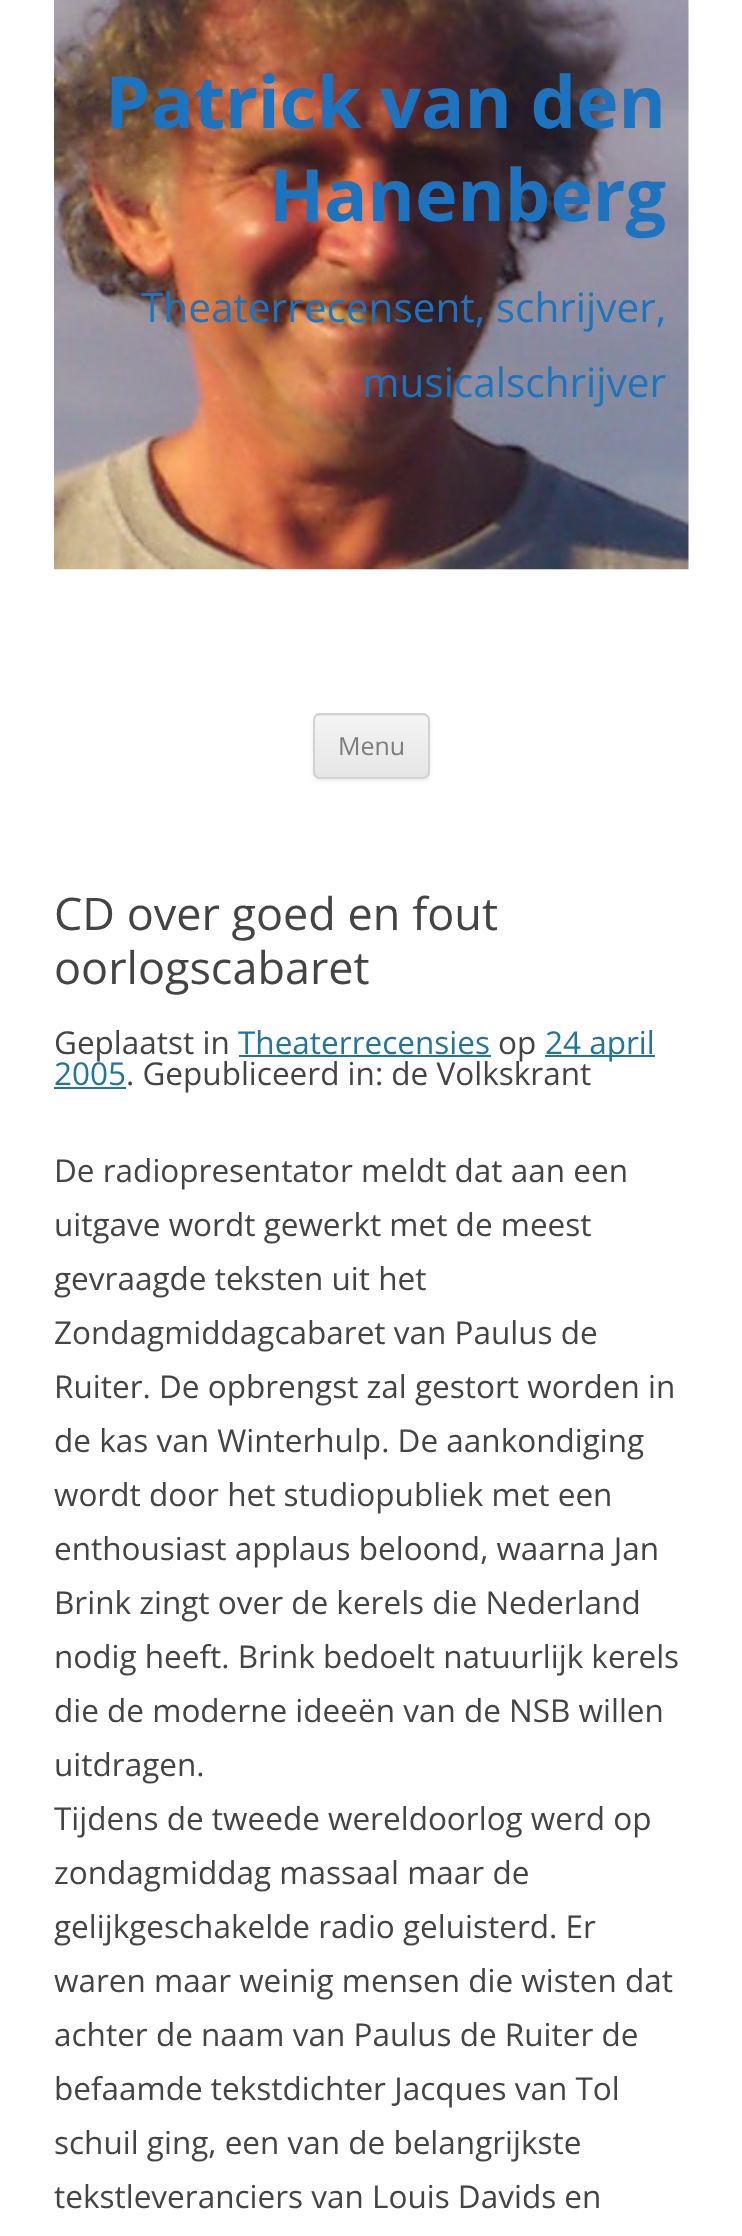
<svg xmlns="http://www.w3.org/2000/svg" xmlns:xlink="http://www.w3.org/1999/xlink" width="742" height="2236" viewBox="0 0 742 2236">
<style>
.cls-1{font:bold 72px Open Sans;fill:#1e73be}
.cls-2{font:40.5px Open Sans;fill:#1e73be}
.cls-3{font:25px Open Sans;fill:#7c7c7c}
.cls-4{font:45px Open Sans;fill:#444444}
.cls-5{font:31.5px Open Sans;fill:#444444}
.cls-6{font:31.5px Open Sans;fill:#21759b}
</style>
<defs>
<clipPath id="clip1"><rect x="313" y="713" width="117" height="66" rx="7"/></clipPath>
<linearGradient id="g1" gradientUnits="userSpaceOnUse" x1="371" y1="716" x2="371" y2="776"><stop offset="0" stop-color="#f4f4f4"/><stop offset="1" stop-color="#e6e6e6"/></linearGradient>
</defs>
<rect width="100%" height="100%" fill="#ffffff"/>
<image xlink:href="image0.png" x="54" y="0" width="635" height="570"/>
<rect fill="#404040" fill-opacity="0.1" filter="blur(2px)" x="313" y="716" width="117" height="65" rx="7"/>
<rect fill="#e6e6e6" x="313" y="713" width="117" height="66" rx="7"/>
<g clip-path="url(#clip1)">
<rect fill="url(#g1)" x="313" y="716" width="117" height="60"/>
</g>
<rect fill="none" stroke="#d2d2d2" stroke-width="2" x="314" y="714" width="115" height="64" rx="6"/>
<rect fill="#21759b" x="239" y="1055" width="252" height="2"/>
<rect fill="#21759b" x="545" y="1055" width="110" height="2"/>
<rect fill="#21759b" x="54" y="1087" width="72" height="2"/>
<text class="cls-1" x="105" y="128">Patrick van den</text>
<text class="cls-1" x="269" y="221">Hanenberg</text>
<text class="cls-2" x="141" y="322">Theaterrecensent, schrijver,</text>
<text class="cls-2" x="362" y="397">musicalschrijver</text>
<text class="cls-3" x="338" y="755">Menu</text>
<text class="cls-4"><tspan x="54" y="930">CD over goed en fout</tspan><tspan x="54" y="984">oorlogscabaret</tspan></text>
<text class="cls-5" x="54" y="1054">Geplaatst in</text>
<text class="cls-6" x="238" y="1054">Theaterrecensies</text>
<text class="cls-5" x="498" y="1054">op</text>
<text class="cls-6" x="545" y="1054">24 april</text>
<text class="cls-6" x="54" y="1085">2005</text>
<text class="cls-5" x="126" y="1085">. Gepubliceerd in: de Volkskrant</text>
<text class="cls-5"><tspan x="54" y="1182">De radiopresentator meldt dat aan een</tspan><tspan x="54" y="1236">uitgave wordt gewerkt met de meest</tspan><tspan x="54" y="1290">gevraagde teksten uit het</tspan><tspan x="54" y="1344">Zondagmiddagcabaret van Paulus de</tspan><tspan x="54" y="1398">Ruiter. De opbrengst zal gestort worden in</tspan><tspan x="54" y="1452">de kas van Winterhulp. De aankondiging</tspan><tspan x="54" y="1506">wordt door het studiopubliek met een</tspan><tspan x="54" y="1560">enthousiast applaus beloond, waarna Jan</tspan><tspan x="54" y="1614">Brink zingt over de kerels die Nederland</tspan><tspan x="54" y="1668">nodig heeft. Brink bedoelt natuurlijk kerels</tspan><tspan x="54" y="1722">die de moderne ideeën van de NSB willen</tspan><tspan x="54" y="1776">uitdragen.</tspan><tspan x="54" y="1830">Tijdens de tweede wereldoorlog werd op</tspan><tspan x="54" y="1884">zondagmiddag massaal maar de</tspan><tspan x="54" y="1938">gelijkgeschakelde radio geluisterd. Er</tspan><tspan x="54" y="1992">waren maar weinig mensen die wisten dat</tspan><tspan x="54" y="2046">achter de naam van Paulus de Ruiter de</tspan><tspan x="54" y="2100">befaamde tekstdichter Jacques van Tol</tspan><tspan x="54" y="2154">schuil ging, een van de belangrijkste</tspan><tspan x="54" y="2208">tekstleveranciers van Louis Davids en</tspan></text>
</svg>
